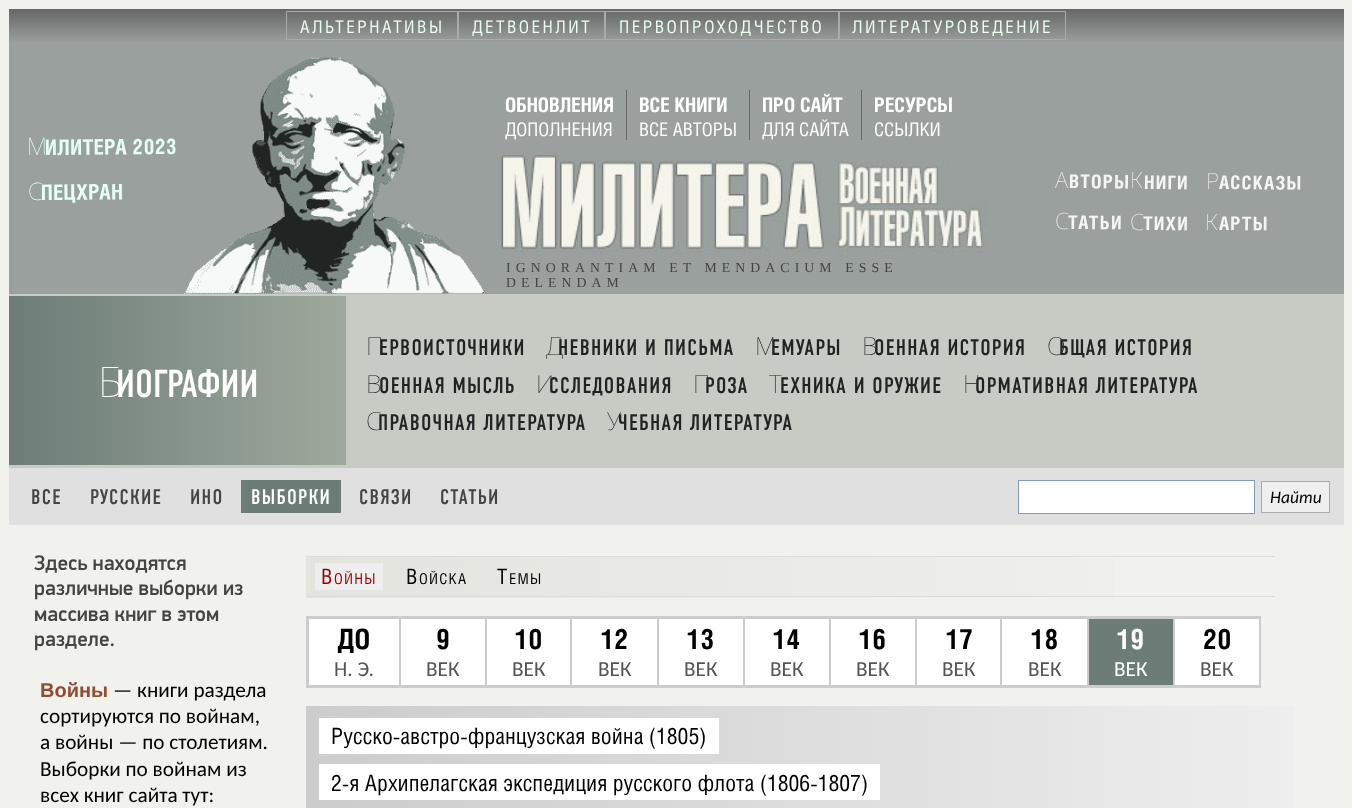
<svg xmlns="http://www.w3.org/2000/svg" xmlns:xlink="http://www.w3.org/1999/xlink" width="1352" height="808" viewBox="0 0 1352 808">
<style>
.cls-1{font:17.5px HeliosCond;letter-spacing:2.5px;fill:#ebffef}
.cls-2{font:100 24px Noto Sans;letter-spacing:0.4px;fill:#e6fff5}
.cls-3{font:bold 21.25px HeliosCond;letter-spacing:0.4px;fill:#e6fff5}
.cls-4{font:bold 20px HeliosCond;fill:#ffffff}
.cls-5{font:18.75px HeliosCond;fill:#ffffff}
.cls-6{font:13.75px Liberation Serif;letter-spacing:5.1px;fill:#444444}
.cls-7{font:100 22.5px Noto Sans;letter-spacing:1.25px;fill:#f5f5f5}
.cls-8{font:bold 18.75px HeliosCond;letter-spacing:1.25px;fill:#f5f5f5}
.cls-9{font:100 42px Noto Sans;fill:#ffffff}
.cls-10{font:39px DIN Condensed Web;fill:#ffffff}
.cls-11{font:100 25px Noto Sans;letter-spacing:1.25px;fill:#222222}
.cls-12{font:22.5px DIN Condensed Web;letter-spacing:1.25px;fill:#222222}
.cls-13{font:21.25px DIN Condensed Web;letter-spacing:1.25px;fill:#444444}
.cls-14{font:21.25px DIN Condensed Web;letter-spacing:1.25px;fill:#ffffff}
.cls-15{font:italic 17.5px Carlito;fill:#000000}
.cls-16{font:500 21.25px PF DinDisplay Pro;fill:#444444}
.cls-17{font:bold 20px Liberation Sans;fill:#904d30}
.cls-18{font:21.25px Carlito;fill:#000000}
.cls-19{font:21.25px HeliosCond;letter-spacing:1.25px;fill:#990000}
.cls-20{font:15px HeliosCond;letter-spacing:1.25px;fill:#990000}
.cls-21{font:21.25px HeliosCond;letter-spacing:1.25px;fill:#000000}
.cls-22{font:15px HeliosCond;letter-spacing:1.25px;fill:#000000}
.cls-23{font:bold 28px HeliosCond;fill:#000000}
.cls-24{font:21.25px Carlito;fill:#555555}
.cls-25{font:bold 28px HeliosCond;fill:#ffffff}
.cls-26{font:21.25px Carlito;fill:#ffffff}
.cls-27{font:22.5px HeliosCond;fill:#000000}
</style>
<defs>
<linearGradient id="g1" gradientUnits="userSpaceOnUse" x1="676" y1="43" x2="676" y2="9"><stop offset="0" stop-color="#9aa09e"/><stop offset="1" stop-color="#666666"/></linearGradient>
<linearGradient id="g2" gradientUnits="userSpaceOnUse" x1="9" y1="381" x2="346" y2="381"><stop offset="0" stop-color="#6c7c77"/><stop offset="1" stop-color="#9fa99d"/></linearGradient>
<linearGradient id="g3" gradientUnits="userSpaceOnUse" x1="1275" y1="577" x2="306" y2="577"><stop offset="0" stop-color="#f1f1ee"/><stop offset="1" stop-color="#e4e4df"/></linearGradient>
<linearGradient id="g4" gradientUnits="userSpaceOnUse" x1="306" y1="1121" x2="1294" y2="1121"><stop offset="0" stop-color="#cccccc"/><stop offset="1" stop-color="#eeeeee"/></linearGradient>
</defs>
<rect width="100%" height="100%" fill="#e0e0e0"/>
<rect fill="none" stroke="#f1f1ee" stroke-width="9" x="4.5" y="4.5" width="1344" height="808"/>
<rect fill="url(#g1)" x="9" y="9" width="1335" height="34"/>
<rect fill="none" stroke="#aaaaaa" x="286.5" y="11.5" width="171" height="28"/>
<rect fill="none" stroke="#aaaaaa" x="458.5" y="11.5" width="146" height="28"/>
<rect fill="none" stroke="#aaaaaa" x="605.5" y="11.5" width="233" height="28"/>
<rect fill="none" stroke="#aaaaaa" x="839.5" y="11.5" width="226" height="28"/>
<rect fill="#9aa09e" x="9" y="43" width="1335" height="251"/>
<image xlink:href="image0.png" x="183" y="57" width="302" height="237"/>
<rect fill="#666666" x="626" y="90" width="1" height="50"/>
<rect fill="#666666" x="749" y="90" width="1" height="50"/>
<rect fill="#666666" x="861" y="90" width="1" height="50"/>
<image xlink:href="image1.png" x="500" y="150" width="488" height="104"/>
<rect fill="#c7cbc3" x="9" y="294" width="1335" height="174"/>
<rect fill="url(#g2)" x="9" y="296" width="337" height="169"/>
<rect fill="#6c7c77" x="241" y="480" width="100" height="33"/>
<rect fill="#ffffff" stroke="#7f9db9" x="1018.5" y="480.5" width="236" height="33"/>
<rect fill="#efefef" stroke="#aaaaaa" x="1261.5" y="481.5" width="68" height="31"/>
<rect fill="#f1f1ee" x="9" y="525" width="1335" height="283"/>
<rect fill="url(#g3)" x="306" y="557" width="808" height="41"/>
<rect fill="#dddddd" x="306" y="556" width="969" height="1"/>
<rect fill="#dddddd" x="306" y="596" width="969" height="1"/>
<rect fill="#eeeeee" x="315" y="563" width="68" height="27"/>
<rect fill="#cccccc" x="306" y="616" width="955" height="72"/>
<rect fill="#ffffff" x="309" y="619" width="90" height="66"/>
<rect fill="#ffffff" x="401" y="619" width="84" height="66"/>
<rect fill="#ffffff" x="487" y="619" width="83" height="66"/>
<rect fill="#ffffff" x="572" y="619" width="85" height="66"/>
<rect fill="#ffffff" x="659" y="619" width="84" height="66"/>
<rect fill="#ffffff" x="745" y="619" width="84" height="66"/>
<rect fill="#ffffff" x="831" y="619" width="84" height="66"/>
<rect fill="#ffffff" x="917" y="619" width="83" height="66"/>
<rect fill="#ffffff" x="1002" y="619" width="85" height="66"/>
<rect fill="#6c7c77" x="1089" y="619" width="84" height="66"/>
<rect fill="#ffffff" x="1175" y="619" width="84" height="66"/>
<rect fill="url(#g4)" x="306" y="706" width="988" height="102"/>
<rect fill="#ffffff" x="319" y="718" width="400" height="36"/>
<rect fill="#ffffff" x="319" y="764" width="561" height="36"/>
<text class="cls-1" x="300" y="33">АЛЬТЕРНАТИВЫ</text>
<text class="cls-1" x="472" y="33">ДЕТВОЕНЛИТ</text>
<text class="cls-1" x="619" y="33">ПЕРВОПРОХОДЧЕСТВО</text>
<text class="cls-1" x="852" y="33">ЛИТЕРАТУРОВЕДЕНИЕ</text>
<text class="cls-2" x="27" y="155" transform="rotate(-0.5 27 155)">М</text>
<text class="cls-3" x="45" y="155" transform="rotate(-0.5 45 155)">ИЛИТЕРА 2023</text>
<text class="cls-2" x="28" y="200" transform="rotate(-0.5 28 200)">С</text>
<text class="cls-3" x="41" y="200" transform="rotate(-0.5 41 200)">ПЕЦХРАН</text>
<text class="cls-4" x="505" y="112">ОБНОВЛЕНИЯ</text>
<text class="cls-5" x="505" y="136">ДОПОЛНЕНИЯ</text>
<text class="cls-4" x="639" y="112">ВСЕ КНИГИ</text>
<text class="cls-5" x="639" y="136">ВСЕ АВТОРЫ</text>
<text class="cls-4" x="762" y="112">ПРО САЙТ</text>
<text class="cls-5" x="762" y="136">ДЛЯ САЙТА</text>
<text class="cls-4" x="874" y="112">РЕСУРСЫ</text>
<text class="cls-5" x="874" y="136">ССЫЛКИ</text>
<text class="cls-6"><tspan x="506" y="272">IGNORANTIAM ET MENDACIUM ESSE</tspan><tspan x="506" y="287">DELENDAM</tspan></text>
<text class="cls-7" x="1055" y="188" transform="rotate(0.5 1055 188)">А</text>
<text class="cls-8" x="1069" y="188" transform="rotate(0.5 1069 188)">ВТОРЫ</text>
<text class="cls-7" x="1130" y="188" transform="rotate(0.5 1130 188)">К</text>
<text class="cls-8" x="1144" y="189" transform="rotate(0.5 1144 189)">НИГИ</text>
<text class="cls-7" x="1206" y="189" transform="rotate(0.5 1206 189)">Р</text>
<text class="cls-8" x="1219" y="189" transform="rotate(0.5 1219 189)">АССКАЗЫ</text>
<text class="cls-7" x="1055" y="229" transform="rotate(0.5 1055 229)">С</text>
<text class="cls-8" x="1068" y="229" transform="rotate(0.5 1068 229)">ТАТЬИ</text>
<text class="cls-7" x="1130" y="230" transform="rotate(0.5 1130 230)">С</text>
<text class="cls-8" x="1143" y="230" transform="rotate(0.5 1143 230)">ТИХИ</text>
<text class="cls-7" x="1205" y="230" transform="rotate(0.5 1205 230)">К</text>
<text class="cls-8" x="1219" y="230" transform="rotate(0.5 1219 230)">АРТЫ</text>
<text class="cls-9" x="98" y="397">Б</text>
<text class="cls-10" x="116" y="397">ИОГРАФИИ</text>
<text class="cls-11" x="366" y="355">П</text>
<text class="cls-12" x="379" y="355">ЕРВОИСТОЧНИКИ</text>
<text class="cls-11" x="546" y="355">Д</text>
<text class="cls-12" x="558" y="355">НЕВНИКИ И ПИСЬМА</text>
<text class="cls-11" x="755" y="355">М</text>
<text class="cls-12" x="771" y="355">ЕМУАРЫ</text>
<text class="cls-11" x="862" y="355">В</text>
<text class="cls-12" x="874" y="355">ОЕННАЯ ИСТОРИЯ</text>
<text class="cls-11" x="1047" y="355">О</text>
<text class="cls-12" x="1059" y="355">БЩАЯ ИСТОРИЯ</text>
<text class="cls-11" x="366" y="393">В</text>
<text class="cls-12" x="379" y="393">ОЕННАЯ МЫСЛЬ</text>
<text class="cls-11" x="536" y="393">И</text>
<text class="cls-12" x="549" y="393">ССЛЕДОВАНИЯ</text>
<text class="cls-11" x="693" y="393">П</text>
<text class="cls-12" x="705" y="393">РОЗА</text>
<text class="cls-11" x="769" y="393">Т</text>
<text class="cls-12" x="780" y="393">ЕХНИКА И ОРУЖИЕ</text>
<text class="cls-11" x="963" y="393">Н</text>
<text class="cls-12" x="975" y="393">ОРМАТИВНАЯ ЛИТЕРАТУРА</text>
<text class="cls-11" x="366" y="430">С</text>
<text class="cls-12" x="378" y="430">ПРАВОЧНАЯ ЛИТЕРАТУРА</text>
<text class="cls-11" x="607" y="430">У</text>
<text class="cls-12" x="618" y="430">ЧЕБНАЯ ЛИТЕРАТУРА</text>
<text class="cls-13" x="31" y="504">ВСЕ</text>
<text class="cls-13" x="90" y="504">РУССКИЕ</text>
<text class="cls-13" x="190" y="504">ИНО</text>
<text class="cls-14" x="251" y="504">ВЫБОРКИ</text>
<text class="cls-13" x="359" y="504">СВЯЗИ</text>
<text class="cls-13" x="440" y="504">СТАТЬИ</text>
<text class="cls-15" x="1270" y="503">Найти</text>
<text class="cls-16"><tspan x="34" y="570">Здесь находятся</tspan><tspan x="34" y="595">различные выборки из</tspan><tspan x="34" y="621">массива книг в этом</tspan><tspan x="34" y="646">разделе.</tspan></text>
<text class="cls-17" x="40" y="697">Войны</text>
<text class="cls-18" x="113" y="697">— книги раздела</text>
<text class="cls-18"><tspan x="40" y="723">сортируются по войнам,</tspan><tspan x="40" y="749">а войны — по столетиям.</tspan><tspan x="40" y="776">Выборки по войнам из</tspan><tspan x="40" y="802">всех книг сайта тут:</tspan></text>
<text class="cls-19" x="321" y="584">В</text>
<text class="cls-20" x="334" y="584">ОЙНЫ</text>
<text class="cls-21" x="406" y="584">В</text>
<text class="cls-22" x="419" y="584">ОЙСКА</text>
<text class="cls-21" x="497" y="584">Т</text>
<text class="cls-22" x="509" y="584">ЕМЫ</text>
<text class="cls-23" x="337" y="649">ДО</text>
<text class="cls-24" x="334" y="676">Н. Э.</text>
<text class="cls-23" x="436" y="649">9</text>
<text class="cls-24" x="426" y="676">ВЕК</text>
<text class="cls-23" x="515" y="649">10</text>
<text class="cls-24" x="512" y="676">ВЕК</text>
<text class="cls-23" x="601" y="649">12</text>
<text class="cls-24" x="598" y="676">ВЕК</text>
<text class="cls-23" x="687" y="649">13</text>
<text class="cls-24" x="684" y="676">ВЕК</text>
<text class="cls-23" x="773" y="649">14</text>
<text class="cls-24" x="770" y="676">ВЕК</text>
<text class="cls-23" x="859" y="649">16</text>
<text class="cls-24" x="856" y="676">ВЕК</text>
<text class="cls-23" x="946" y="649">17</text>
<text class="cls-24" x="942" y="676">ВЕК</text>
<text class="cls-23" x="1031" y="649">18</text>
<text class="cls-24" x="1028" y="676">ВЕК</text>
<text class="cls-25" x="1117" y="649">19</text>
<text class="cls-26" x="1114" y="676">ВЕК</text>
<text class="cls-23" x="1203" y="649">20</text>
<text class="cls-24" x="1200" y="676">ВЕК</text>
<text class="cls-27" x="331" y="744">Русско-австро-французская война (1805)</text>
<text class="cls-27" x="331" y="791">2-я Архипелагская экспедиция русского флота (1806-1807)</text>
</svg>
